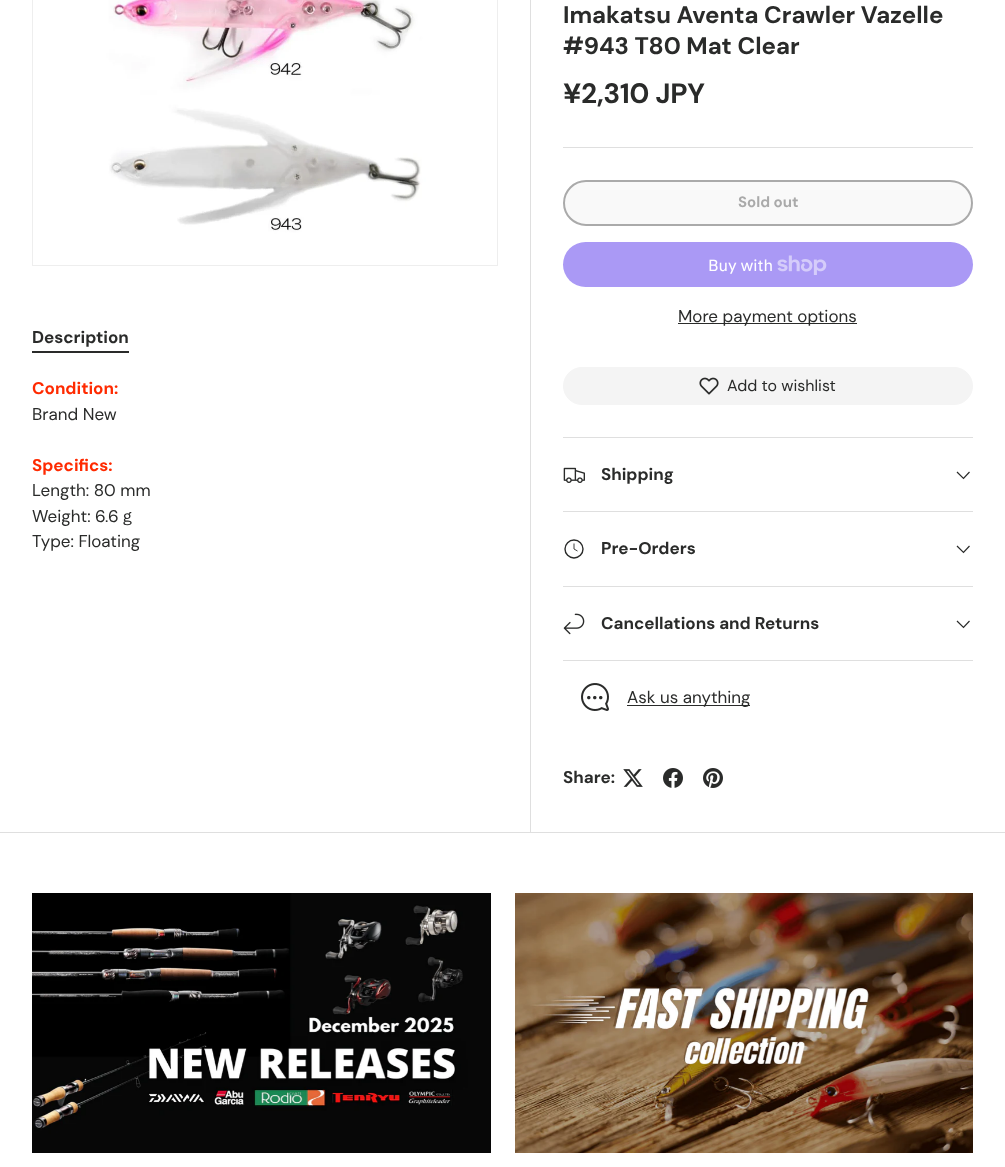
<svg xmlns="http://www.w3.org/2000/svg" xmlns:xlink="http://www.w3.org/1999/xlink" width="1005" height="1167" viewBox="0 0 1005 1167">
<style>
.cls-1{font:bold 17px DM Sans;fill:#2a2b2a}
.cls-2{font:bold 17px DM Sans;fill:#ff2a00}
.cls-3{font:17px DM Sans;fill:#2a2b2a}
.cls-4{font:500 17px WenQuanYi Zen Hei;fill:#2a2b2a}
.cls-5{font:bold 24px 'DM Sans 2';fill:#2a2b2a}
.cls-6{font:bold 28px 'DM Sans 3';fill:#2a2b2a}
.cls-7{font:bold 15px 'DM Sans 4';fill:#aaaaaa}
.cls-8{font:16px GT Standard;fill:#ffffff}
.cls-9{font:16px 'DM Sans 2';fill:#2a2b2a}
</style>
<defs>
<clipPath id="clip1"><rect x="563" y="180" width="410" height="46" rx="23"/></clipPath>
<linearGradient id="g1" gradientUnits="userSpaceOnUse" x1="596" y1="59" x2="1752" y2="347"><stop offset="0.6" stop-color="#f9f9f9"/><stop offset="0.6" stop-color="#ffffff"/><stop offset="1" stop-color="#ffffff"/></linearGradient>
</defs>
<rect width="100%" height="100%" fill="#ffffff"/>
<rect fill="#2a2b2a" x="32" y="351" width="97" height="2"/>
<rect fill="none" stroke="#eeeeee" x="32.5" y="-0.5" width="465" height="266"/>
<image xlink:href="image0.png" x="33" y="0" width="464" height="265"/>
<rect fill="#dfdfdf" x="0" y="832" width="1005" height="1"/>
<rect fill="#dfdfdf" x="530" y="0" width="1" height="833"/>
<rect fill="#dfdfdf" x="563" y="147" width="410" height="1"/>
<g clip-path="url(#clip1)">
<rect fill="url(#g1)" x="565" y="182" width="408" height="42"/>
</g>
<rect fill="none" stroke="#aaaaaa" stroke-width="2" x="564" y="181" width="408" height="44" rx="22"/>
<rect fill="#aa99f5" x="563" y="242" width="410" height="45" rx="22.5"/>
<image xlink:href="image1.png" x="777" y="255" width="50" height="20"/>
<rect fill="#2a2b2a" x="678" y="323" width="179" height="1"/>
<rect fill="#f4f4f4" stroke="#f4f4f4" x="563.5" y="367.5" width="409" height="37" rx="18.5"/>
<image xlink:href="image2.png" x="699" y="377" width="20" height="18"/>
<rect fill="#dfdfdf" x="563" y="437" width="410" height="1"/>
<rect fill="#dfdfdf" x="563" y="511" width="410" height="1"/>
<image xlink:href="image3.png" x="563" y="467" width="22" height="16"/>
<path fill="none" stroke="#2a2b2a" stroke-width="1.2" d="M969.5 472L963.5 478.5L957 472"/>
<rect fill="#dfdfdf" x="563" y="586" width="410" height="1"/>
<circle fill="none" stroke="#2a2b2a" stroke-width="1.4" cx="574" cy="549" r="9"/>
<path fill="none" stroke="#2a2b2a" stroke-width="0.9" d="M574 543.5V549L577.5 551"/>
<path fill="none" stroke="#2a2b2a" stroke-width="1.2" d="M969.5 546L963.5 552.5L957 546"/>
<rect fill="#dfdfdf" x="563" y="660" width="410" height="1"/>
<image xlink:href="image4.png" x="563" y="613" width="22" height="22"/>
<path fill="none" stroke="#2a2b2a" stroke-width="1.2" d="M969.5 621L963.5 627.5L957 621"/>
<image xlink:href="image5.png" x="581" y="683" width="28" height="28"/>
<rect fill="#2a2b2a" x="627" y="705" width="123" height="1"/>
<image xlink:href="image6.png" x="623" y="769" width="20" height="18"/>
<image xlink:href="image7.png" x="663" y="768" width="20" height="20"/>
<image xlink:href="image8.png" x="703" y="768" width="20" height="20"/>
<image xlink:href="image9.png" x="32" y="893" width="459" height="260"/>
<image xlink:href="image10.png" x="515" y="893" width="458" height="260"/>
<text class="cls-1" x="32" y="343">Description</text>
<text class="cls-2" x="32" y="394">Condition:</text>
<text class="cls-3" x="32" y="420">Brand New</text>
<text class="cls-2" x="32" y="471">Specifics:</text>
<text class="cls-3"><tspan x="32" y="496">Length: 80 mm</tspan><tspan x="32" y="522">Weight: 6.6</tspan></text>
<text class="cls-4" x="119" y="522">ｇ</text>
<text class="cls-3" x="32" y="547">Type: Floating</text>
<text class="cls-5"><tspan x="563" y="23">Imakatsu Aventa Crawler Vazelle</tspan><tspan x="563" y="54">#943 T80 Mat Clear</tspan></text>
<text class="cls-6" x="563" y="103">¥2,310 JPY</text>
<text class="cls-7" x="738" y="207">Sold out</text>
<text class="cls-8" x="708" y="271">Buy with</text>
<text class="cls-3" x="678" y="322">More payment options</text>
<text class="cls-9" x="727" y="391">Add to wishlist</text>
<text class="cls-1" x="601" y="480">Shipping</text>
<text class="cls-1" x="601" y="554">Pre-Orders</text>
<text class="cls-1" x="601" y="629">Cancellations and Returns</text>
<text class="cls-3" x="627" y="703">Ask us anything</text>
<text class="cls-1" x="563" y="783">Share:</text>
</svg>
